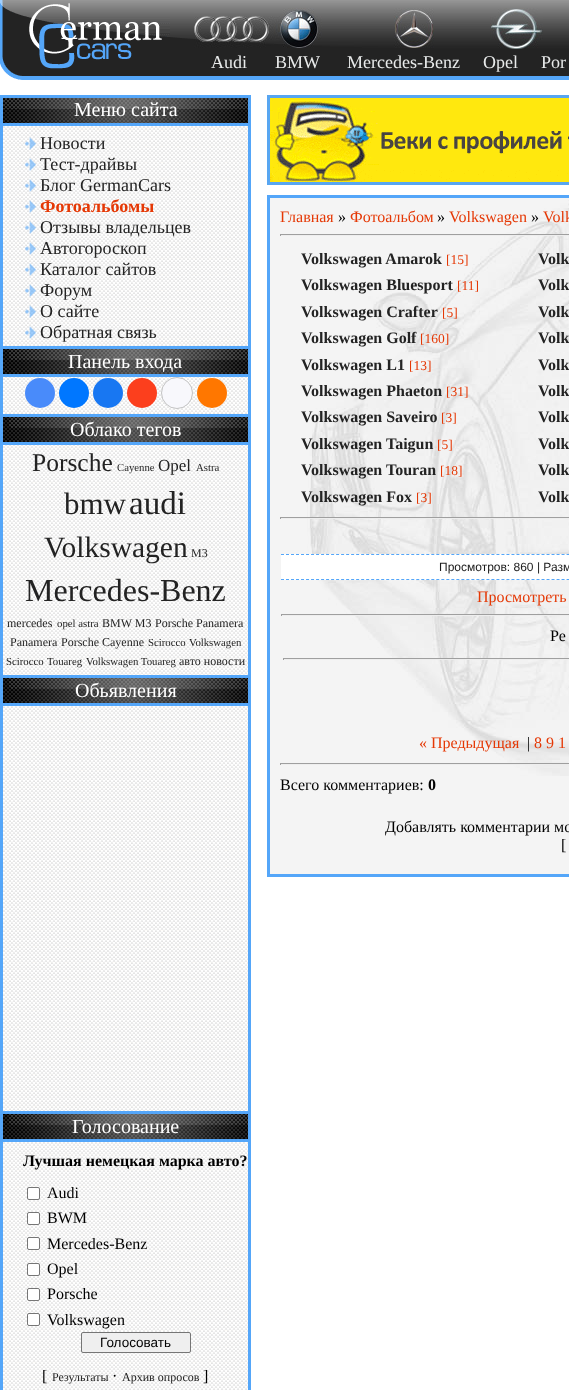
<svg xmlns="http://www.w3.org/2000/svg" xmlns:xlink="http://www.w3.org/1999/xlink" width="569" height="1390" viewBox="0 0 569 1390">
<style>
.cls-1{font:18px Liberation Serif;fill:#e9ebeb}
.cls-2{font:20px Liberation Serif;fill:#ffffff}
.cls-3{font:18px Liberation Serif;fill:#232323}
.cls-4{font:bold 18px Liberation Serif;fill:#e53805}
.cls-5{font:25.5px Liberation Serif;fill:#232323}
.cls-6{font:10.75px Liberation Serif;fill:#232323}
.cls-7{font:17px Liberation Serif;fill:#232323}
.cls-8{font:31px Liberation Serif;fill:#232323}
.cls-9{font:33px Liberation Serif;fill:#232323}
.cls-10{font:29.5px Liberation Serif;fill:#232323}
.cls-11{font:12px Liberation Serif;fill:#232323}
.cls-12{font:32px Liberation Serif;fill:#232323}
.cls-13{font:bold 16px Liberation Serif;fill:#000000}
.cls-14{font:16px Liberation Serif;fill:#000000}
.cls-15{font:13.5px Liberation Sans;fill:#000000}
.cls-16{font:16px Liberation Serif;fill:#e53805}
.cls-17{font:bold 16px Liberation Serif;fill:#232323}
.cls-18{font:13.5px Liberation Serif;fill:#e53805}
.cls-19{font:12px Liberation Sans;fill:#1a1a1a}
</style>
<rect width="100%" height="100%" fill="#ffffff"/>
<rect fill="#f4f4f4" x="270" y="198" width="299" height="676"/>
<image xlink:href="image0.png" x="307" y="200" width="262" height="576"/>
<image xlink:href="image1.png" x="170" y="0" width="399" height="80"/>
<image xlink:href="image2.png" x="0" y="0" width="170" height="80"/>
<image xlink:href="image3.png" x="194" y="8" width="349" height="41"/>
<image xlink:href="image4.png" x="3" y="126" width="245" height="1264"/>
<rect fill="none" stroke="#54a6f9" stroke-width="3" x="1.5" y="96.5" width="248" height="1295"/>
<image xlink:href="image5.png" x="3" y="98" width="245" height="28"/>
<image xlink:href="image6.png" x="25" y="137" width="11" height="13"/>
<image xlink:href="image7.png" x="25" y="158" width="11" height="13"/>
<image xlink:href="image8.png" x="25" y="179" width="11" height="13"/>
<image xlink:href="image9.png" x="25" y="200" width="11" height="13"/>
<image xlink:href="image10.png" x="25" y="221" width="11" height="13"/>
<image xlink:href="image11.png" x="25" y="242" width="11" height="13"/>
<image xlink:href="image12.png" x="25" y="263" width="11" height="13"/>
<image xlink:href="image13.png" x="25" y="284" width="11" height="13"/>
<image xlink:href="image14.png" x="25" y="305" width="11" height="13"/>
<image xlink:href="image15.png" x="25" y="326" width="11" height="13"/>
<image xlink:href="image16.png" x="3" y="346" width="245" height="31"/>
<circle fill="#498bfa" cx="40" cy="393" r="15"/>
<circle fill="#0077ff" cx="74" cy="393" r="15"/>
<circle fill="#1877f2" cx="108" cy="393" r="15"/>
<circle fill="#fc3f1d" cx="142" cy="393" r="15"/>
<circle fill="#f8f8fc" stroke="#c4c4c4" cx="177" cy="393" r="15.5"/>
<circle fill="#ff7700" cx="212" cy="393" r="15"/>
<image xlink:href="image16.png" x="3" y="414" width="245" height="31"/>
<image xlink:href="image16.png" x="3" y="675" width="245" height="31"/>
<image xlink:href="image16.png" x="3" y="1111" width="245" height="31"/>
<rect fill="#ffffff" stroke="#767676" x="27.5" y="1187.5" width="12" height="12" rx="1.5"/>
<rect fill="#ffffff" stroke="#767676" x="27.5" y="1212.5" width="12" height="12" rx="1.5"/>
<rect fill="#ffffff" stroke="#767676" x="27.5" y="1237.5" width="12" height="12" rx="1.5"/>
<rect fill="#ffffff" stroke="#767676" x="27.5" y="1263.5" width="12" height="12" rx="1.5"/>
<rect fill="#ffffff" stroke="#767676" x="27.5" y="1288.5" width="12" height="12" rx="1.5"/>
<rect fill="#ffffff" stroke="#767676" x="27.5" y="1313.5" width="12" height="12" rx="1.5"/>
<rect fill="#efefef" stroke="#767676" x="81.5" y="1332.5" width="109" height="20" rx="1.5"/>
<image xlink:href="image17.png" x="267" y="95" width="302" height="90"/>
<rect fill="none" stroke="#54a6f9" stroke-width="3" x="268.5" y="196.5" width="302" height="679"/>
<rect fill="#9f9f9f" x="280" y="234" width="289" height="1"/>
<rect fill="#eeeeee" x="280" y="235" width="289" height="1"/>
<rect fill="#9f9f9f" x="280" y="234" width="1" height="2"/>
<rect fill="#9f9f9f" x="280" y="517" width="289" height="1"/>
<rect fill="#eeeeee" x="280" y="518" width="289" height="1"/>
<rect fill="#9f9f9f" x="280" y="517" width="1" height="2"/>
<rect fill="#ffffff" x="281" y="554" width="288" height="26"/>
<path fill="none" stroke="#54a6f9" stroke-dasharray="3 2.01" d="M281 554.5H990"/>
<path fill="none" stroke="#54a6f9" stroke-dasharray="3 2.01" d="M281 579.5H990"/>
<rect fill="#9f9f9f" x="281" y="614" width="288" height="1"/>
<rect fill="#eeeeee" x="281" y="615" width="288" height="1"/>
<rect fill="#9f9f9f" x="281" y="614" width="1" height="2"/>
<rect fill="#9f9f9f" x="283" y="658" width="286" height="1"/>
<rect fill="#eeeeee" x="283" y="659" width="286" height="1"/>
<rect fill="#9f9f9f" x="283" y="658" width="1" height="2"/>
<rect fill="#9f9f9f" x="280" y="763" width="289" height="1"/>
<rect fill="#eeeeee" x="280" y="764" width="272" height="1"/>
<rect fill="#9f9f9f" x="280" y="763" width="1" height="2"/>
<text class="cls-1" x="211" y="68">Audi</text>
<text class="cls-1" x="275" y="68">BMW</text>
<text class="cls-1" x="347" y="68">Mercedes-Benz</text>
<text class="cls-1" x="483" y="68">Opel</text>
<text class="cls-1" x="541" y="68">Por</text>
<text class="cls-2" x="74" y="116">Меню сайта</text>
<text class="cls-3"><tspan x="40" y="149">Новости</tspan><tspan x="40" y="170">Тест-драйвы</tspan><tspan x="40" y="191">Блог GermanCars</tspan></text>
<text class="cls-4" x="40" y="212">Фотоальбомы</text>
<text class="cls-3"><tspan x="40" y="233">Отзывы владельцев</tspan><tspan x="40" y="254">Автогороскоп</tspan><tspan x="40" y="275">Каталог сайтов</tspan><tspan x="40" y="296">Форум</tspan><tspan x="40" y="317">О сайте</tspan><tspan x="40" y="338">Обратная связь</tspan></text>
<text class="cls-2" x="68" y="368">Панель входа</text>
<text class="cls-2" x="70" y="436">Облако тегов</text>
<text class="cls-5" x="32" y="471">Porsche</text>
<text class="cls-6" x="117" y="471">Cayenne</text>
<text class="cls-7" x="158" y="471">Opel</text>
<text class="cls-6" x="196" y="471">Astra</text>
<text class="cls-8" x="64" y="514">bmw</text>
<text class="cls-9" x="129" y="514">audi</text>
<text class="cls-10" x="44" y="557">Volkswagen</text>
<text class="cls-11" x="191" y="557">M3</text>
<text class="cls-12" x="25" y="601">Mercedes-Benz</text>
<text class="cls-11" x="7" y="627">mercedes</text>
<text class="cls-6" x="57" y="627">opel astra</text>
<text class="cls-11" x="102" y="627">BMW M3</text>
<text class="cls-11" x="155" y="627">Porsche Panamera</text>
<text class="cls-11" x="10" y="646">Panamera</text>
<text class="cls-11" x="61" y="646">Porsche Cayenne</text>
<text class="cls-6" x="148" y="646">Scirocco</text>
<text class="cls-6" x="189" y="646">Volkswagen</text>
<text class="cls-6" x="6" y="665">Scirocco</text>
<text class="cls-6" x="47" y="665">Touareg</text>
<text class="cls-6" x="86" y="665">Volkswagen Touareg</text>
<text class="cls-11" x="179" y="665">авто новости</text>
<text class="cls-2" x="75" y="697">Обьявления</text>
<text class="cls-2" x="72" y="1133">Голосование</text>
<text class="cls-13" x="23" y="1166">Лучшая немецкая марка авто?</text>
<text class="cls-14"><tspan x="47" y="1198">Audi</tspan><tspan x="47" y="1223">BWM</tspan><tspan x="47" y="1249">Mercedes-Benz</tspan><tspan x="47" y="1274">Opel</tspan><tspan x="47" y="1299">Porsche</tspan><tspan x="47" y="1325">Volkswagen</tspan></text>
<text class="cls-15" x="100" y="1347">Голосовать</text>
<text class="cls-14" x="42" y="1381">[</text>
<text class="cls-11" x="52" y="1381">Результаты</text>
<text class="cls-14" x="112" y="1381">·</text>
<text class="cls-11" x="122" y="1381">Архив опросов</text>
<text class="cls-14" x="203" y="1381">]</text>
<text class="cls-16" x="280" y="222">Главная</text>
<text class="cls-14" x="338" y="222">»</text>
<text class="cls-16" x="350" y="222">Фотоальбом</text>
<text class="cls-14" x="437" y="222">»</text>
<text class="cls-16" x="449" y="222">Volkswagen</text>
<text class="cls-14" x="531" y="222">»</text>
<text class="cls-16" x="543" y="222">Volk</text>
<text class="cls-17" x="301" y="264">Volkswagen Amarok</text>
<text class="cls-18" x="446" y="264">[15]</text>
<text class="cls-17" x="538" y="264">Volk</text>
<text class="cls-17" x="301" y="290">Volkswagen Bluesport</text>
<text class="cls-18" x="457" y="290">[11]</text>
<text class="cls-17" x="538" y="290">Volk</text>
<text class="cls-17" x="301" y="317">Volkswagen Crafter</text>
<text class="cls-18" x="442" y="317">[5]</text>
<text class="cls-17" x="538" y="317">Volk</text>
<text class="cls-17" x="301" y="343">Volkswagen Golf</text>
<text class="cls-18" x="420" y="343">[160]</text>
<text class="cls-17" x="538" y="343">Volk</text>
<text class="cls-17" x="301" y="370">Volkswagen L1</text>
<text class="cls-18" x="409" y="370">[13]</text>
<text class="cls-17" x="538" y="370">Volk</text>
<text class="cls-17" x="301" y="396">Volkswagen Phaeton</text>
<text class="cls-18" x="446" y="396">[31]</text>
<text class="cls-17" x="538" y="396">Volk</text>
<text class="cls-17" x="301" y="422">Volkswagen Saveiro</text>
<text class="cls-18" x="441" y="422">[3]</text>
<text class="cls-17" x="538" y="422">Volk</text>
<text class="cls-17" x="301" y="449">Volkswagen Taigun</text>
<text class="cls-18" x="437" y="449">[5]</text>
<text class="cls-17" x="538" y="449">Volk</text>
<text class="cls-17" x="301" y="475">Volkswagen Touran</text>
<text class="cls-18" x="440" y="475">[18]</text>
<text class="cls-17" x="538" y="475">Volk</text>
<text class="cls-17" x="301" y="502">Volkswagen Fox</text>
<text class="cls-18" x="416" y="502">[3]</text>
<text class="cls-17" x="538" y="502">Volk</text>
<text class="cls-19" x="439" y="571">Просмотров: 860 | Разм</text>
<text class="cls-16" x="477" y="602">Просмотреть</text>
<text class="cls-14" x="550" y="641">Ре</text>
<text class="cls-16" x="419" y="748">« Предыдущая</text>
<text class="cls-14" x="527" y="748">|</text>
<text class="cls-16" x="534" y="748">8 9 1</text>
<text class="cls-14" x="280" y="790">Всего комментариев:</text>
<text class="cls-13" x="428" y="790">0</text>
<text class="cls-14" x="385" y="832">Добавлять комментарии мо</text>
<text class="cls-14" x="561" y="850">[</text>
</svg>
